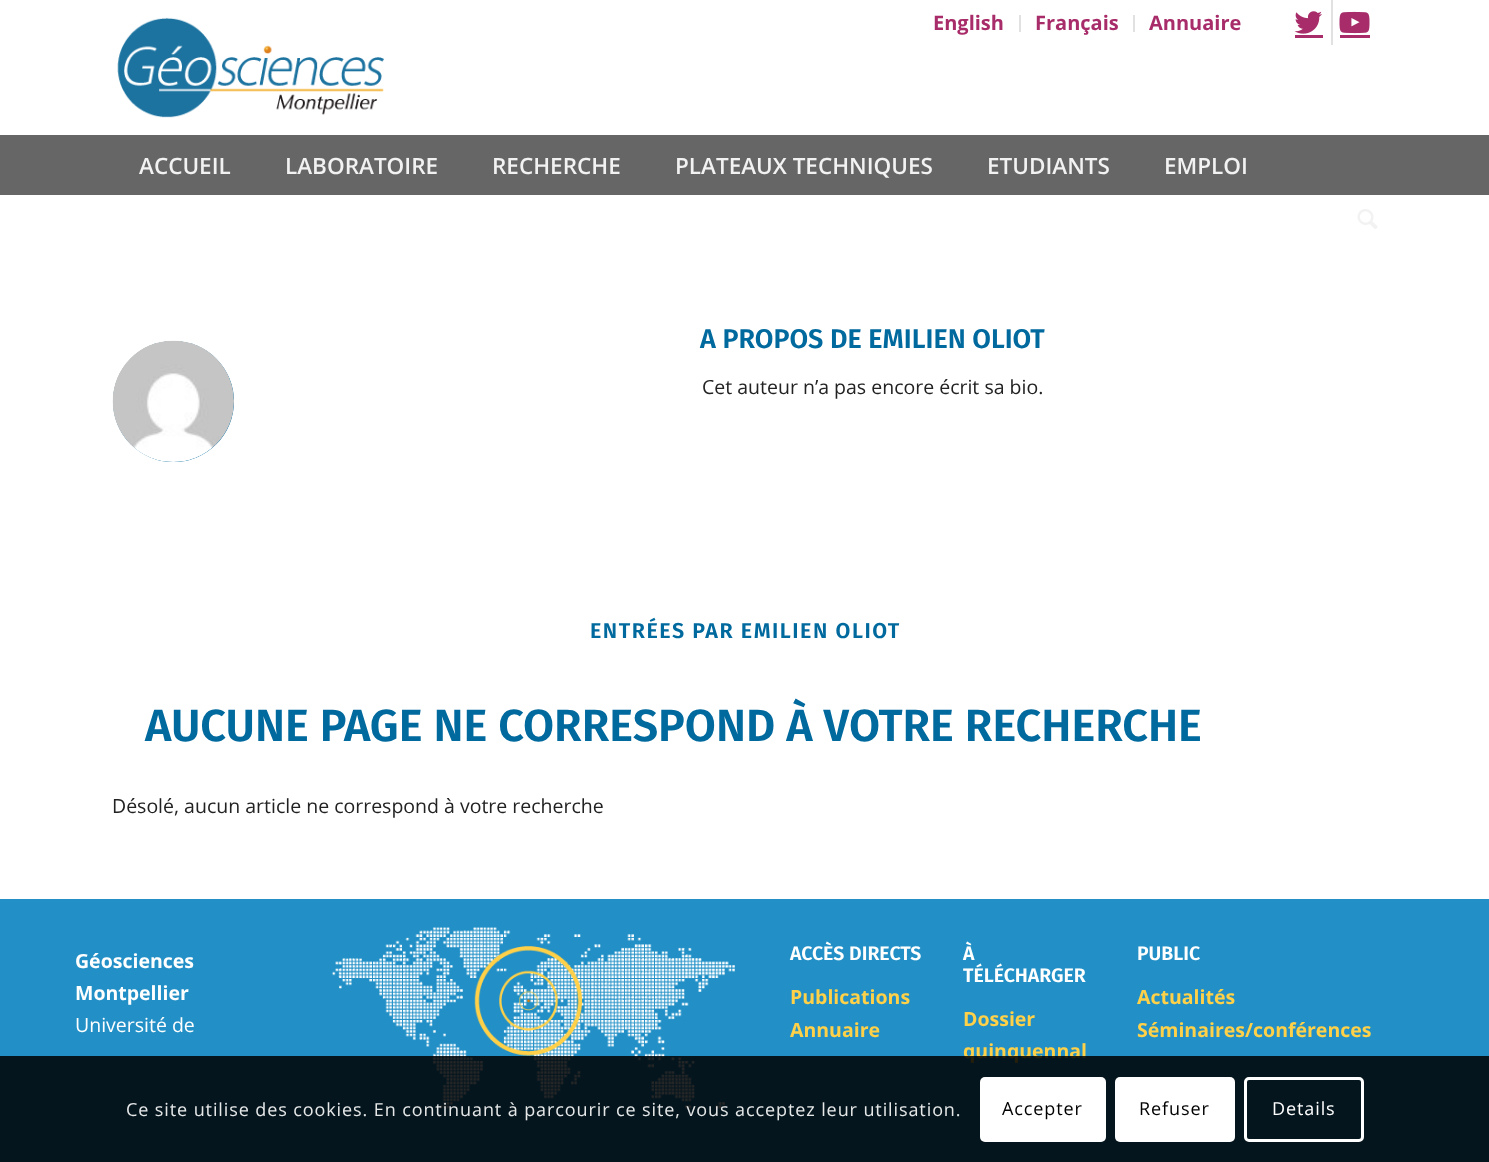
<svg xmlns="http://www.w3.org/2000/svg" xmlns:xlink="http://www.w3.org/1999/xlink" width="1489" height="1162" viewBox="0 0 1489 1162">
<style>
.cls-1{font:bold 20px Open Sans;fill:#a72c69}
.cls-2{font:600 22.5px Open Sans;fill:#f2f2f2}
.cls-3{font:600 27px Fira Sans;fill:#00699e}
.cls-4{font:19.5px Open Sans;fill:#222222}
.cls-5{font:600 21.5px Fira Sans;letter-spacing:1.5px;fill:#00699e}
.cls-6{font:600 45px Fira Sans;fill:#00699e}
.cls-7{font:bold 19.5px Open Sans;fill:#ffffff}
.cls-8{font:19.5px Open Sans;fill:#ffffff}
.cls-9{font:600 19.5px Fira Sans;fill:#ffffff}
.cls-10{font:bold 19.5px Open Sans;fill:#ffd148}
.cls-11{font:18px Open Sans;letter-spacing:0.9px;fill:#e6e8e8}
.cls-12{font:18px Open Sans;letter-spacing:0.9px;fill:#000000}
.cls-13{font:18px Open Sans;letter-spacing:0.9px;fill:#ffffff}
</style>
<rect width="100%" height="100%" fill="#ffffff"/>
<rect fill="#e1e1e1" x="1019" y="15" width="2" height="17"/>
<rect fill="#e1e1e1" x="1133" y="15" width="2" height="17"/>
<rect fill="#e1e1e1" x="1331" y="0" width="2" height="45"/>
<image xlink:href="image0.png" x="1294" y="11" width="28" height="23"/>
<rect fill="#a72c69" x="1295" y="35" width="28" height="3"/>
<image xlink:href="image1.png" x="1339" y="11" width="31" height="23"/>
<rect fill="#a72c69" x="1340" y="35" width="30" height="3"/>
<image xlink:href="image2.png" x="117" y="17" width="267" height="101"/>
<rect fill="#666666" x="0" y="135" width="1489" height="60"/>
<image xlink:href="image3.png" x="1357" y="209" width="21" height="20"/>
<circle fill="#00699e" cx="173.5" cy="401.5" r="60.5"/>
<image xlink:href="image4.png" x="112" y="340" width="122" height="122"/>
<rect fill="#2290c7" x="0" y="899" width="1489" height="263"/>
<image xlink:href="image5.png" x="332" y="927" width="403" height="182"/>
<text class="cls-1" x="933" y="30">English</text>
<text class="cls-1" x="1035" y="30">Français</text>
<text class="cls-1" x="1149" y="30">Annuaire</text>
<text class="cls-2" x="139" y="174">ACCUEIL</text>
<text class="cls-2" x="285" y="174">LABORATOIRE</text>
<text class="cls-2" x="492" y="174">RECHERCHE</text>
<text class="cls-2" x="675" y="174">PLATEAUX TECHNIQUES</text>
<text class="cls-2" x="987" y="174">ETUDIANTS</text>
<text class="cls-2" x="1164" y="174">EMPLOI</text>
<text class="cls-3" x="700" y="348">A PROPOS DE EMILIEN OLIOT</text>
<text class="cls-4" x="702" y="394">Cet auteur n’a pas encore écrit sa bio.</text>
<text class="cls-5" x="590" y="638">ENTRÉES PAR EMILIEN OLIOT</text>
<text class="cls-6" x="145" y="741">AUCUNE PAGE NE CORRESPOND À VOTRE RECHERCHE</text>
<text class="cls-4" x="112" y="813">Désolé, aucun article ne correspond à votre recherche</text>
<text class="cls-7"><tspan x="75" y="968">Géosciences</tspan><tspan x="75" y="1000">Montpellier</tspan></text>
<text class="cls-8" x="75" y="1032">Université de</text>
<text class="cls-9" x="790" y="960">ACCÈS DIRECTS</text>
<text class="cls-10"><tspan x="790" y="1004">Publications</tspan><tspan x="790" y="1037">Annuaire</tspan></text>
<text class="cls-9"><tspan x="963" y="960">À</tspan><tspan x="963" y="982">TÉLÉCHARGER</tspan></text>
<text class="cls-10"><tspan x="963" y="1026">Dossier</tspan><tspan x="963" y="1058">quinquennal</tspan></text>
<text class="cls-9" x="1137" y="960">PUBLIC</text>
<text class="cls-10"><tspan x="1137" y="1004">Actualités</tspan><tspan x="1137" y="1037">Séminaires/conférences</tspan></text>
<rect fill="#000000" fill-opacity="0.85" x="0" y="1056" width="1489" height="106"/>
<text class="cls-11" x="126" y="1116">Ce site utilise des cookies. En continuant à parcourir ce site, vous acceptez leur utilisation.</text>
<rect fill="#ffffff" x="980" y="1077" width="126" height="65" rx="5"/>
<text class="cls-12" x="1002" y="1115">Accepter</text>
<rect fill="#ffffff" x="1115" y="1077" width="120" height="65" rx="5"/>
<text class="cls-12" x="1139" y="1115">Refuser</text>
<rect fill="none" stroke="#ffffff" stroke-width="3" x="1245.5" y="1078.5" width="117" height="62" rx="3.5"/>
<text class="cls-13" x="1272" y="1115">Details</text>
</svg>
